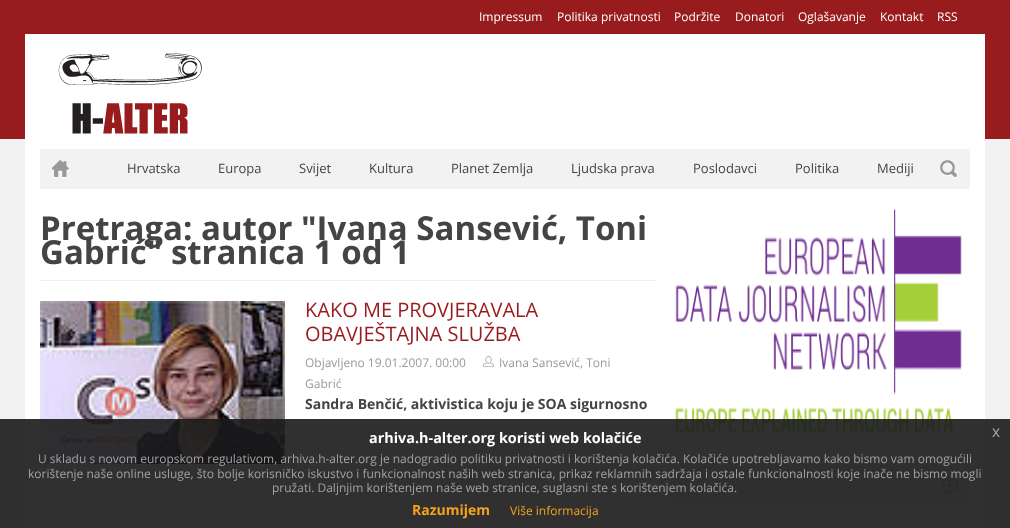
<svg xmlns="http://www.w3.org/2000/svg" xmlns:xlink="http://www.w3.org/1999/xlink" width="1010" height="528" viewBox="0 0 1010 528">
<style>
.cls-1{font:12px Open Sans;fill:#ffffff}
.cls-2{font:13px Open Sans;fill:#444444}
.cls-3{font:bold 33px Open Sans;fill:#444444}
.cls-4{font:20px Open Sans;fill:#981b1e}
.cls-5{font:12px Open Sans;fill:#999999}
.cls-6{font:bold 14px Open Sans;fill:#444444}
.cls-7{font:bold 14.4px Open Sans;fill:#ffffff}
.cls-8{font:16px Liberation Sans;fill:#a2a2a2}
.cls-9{font:12px Open Sans;fill:#a2a2a2}
.cls-10{font:bold 14px Open Sans;fill:#f6a21d}
.cls-11{font:12px Open Sans;fill:#f6a21d}
</style>
<rect width="100%" height="100%" fill="#f2f2f2"/>
<rect fill="#981b1e" x="0" y="0" width="1010" height="139"/>
<rect fill="#ffffff" x="25" y="34" width="960" height="494"/>
<image xlink:href="image0.png" x="58" y="53" width="144" height="81"/>
<rect fill="#f2f2f2" x="40" y="149" width="930" height="40"/>
<image xlink:href="image1.png" x="52" y="160" width="17" height="18"/>
<image xlink:href="image2.png" x="940" y="160" width="17" height="18"/>
<rect fill="#eeeeee" x="40" y="280" width="615" height="1"/>
<image xlink:href="image3.png" x="40" y="301" width="245" height="163"/>
<image xlink:href="image4.png" x="483" y="356" width="11" height="11"/>
<image xlink:href="image5.png" x="675" y="208" width="287" height="226"/>
<rect fill="none" stroke="#f2f2f2" x="670.5" y="464.5" width="299" height="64"/>
<rect fill="#f2f2f2" x="671" y="465" width="298" height="41"/>
<image xlink:href="image6.png" x="942" y="477" width="17" height="17"/>
<rect fill="#f2f2f2" x="819" y="506" width="1" height="22"/>
<rect fill="#191919" fill-opacity="0.9" x="0" y="419" width="1010" height="109"/>
<text class="cls-1" x="479" y="21">Impressum</text>
<text class="cls-1" x="557" y="21">Politika privatnosti</text>
<text class="cls-1" x="674" y="21">Podržite</text>
<text class="cls-1" x="735" y="21">Donatori</text>
<text class="cls-1" x="798" y="21">Oglašavanje</text>
<text class="cls-1" x="880" y="21">Kontakt</text>
<text class="cls-1" x="937" y="21">RSS</text>
<text class="cls-2" x="127" y="173">Hrvatska</text>
<text class="cls-2" x="218" y="173">Europa</text>
<text class="cls-2" x="299" y="173">Svijet</text>
<text class="cls-2" x="369" y="173">Kultura</text>
<text class="cls-2" x="451" y="173">Planet Zemlja</text>
<text class="cls-2" x="571" y="173">Ljudska prava</text>
<text class="cls-2" x="693" y="173">Poslodavci</text>
<text class="cls-2" x="795" y="173">Politika</text>
<text class="cls-2" x="877" y="173">Mediji</text>
<text class="cls-3"><tspan x="40" y="240">Pretraga: autor "Ivana Sansević, Toni</tspan><tspan x="40" y="264">Gabrić" stranica 1 od 1</tspan></text>
<text class="cls-4"><tspan x="305" y="317">KAKO ME PROVJERAVALA</tspan><tspan x="305" y="341">OBAVJEŠTAJNA SLUŽBA</tspan></text>
<text class="cls-5" x="305" y="367">Objavljeno 19.01.2007. 00:00</text>
<text class="cls-5" x="499" y="367">Ivana Sansević, Toni</text>
<text class="cls-5" x="305" y="388">Gabrić</text>
<text class="cls-6" x="305" y="409">Sandra Benčić, aktivistica koju je SOA sigurnosno</text>
<text class="cls-7" x="369" y="443">arhiva.h-alter.org koristi web kolačiće</text>
<text class="cls-8" x="992" y="437">x</text>
<text class="cls-9" x="38" y="463">U skladu s novom europskom regulativom, arhiva.h-alter.org je nadogradio politiku privatnosti i korištenja kolačića. Kolačiće upotrebljavamo kako bismo vam omogućili</text>
<text class="cls-9" x="28" y="478">korištenje naše online usluge, što bolje korisničko iskustvo i funkcionalnost naših web stranica, prikaz reklamnih sadržaja i ostale funkcionalnosti koje inače ne bismo mogli</text>
<text class="cls-9" x="272" y="492">pružati. Daljnjim korištenjem naše web stranice, suglasni ste s korištenjem kolačića.</text>
<text class="cls-10" x="412" y="515">Razumijem</text>
<text class="cls-11" x="510" y="515">Više informacija</text>
</svg>
